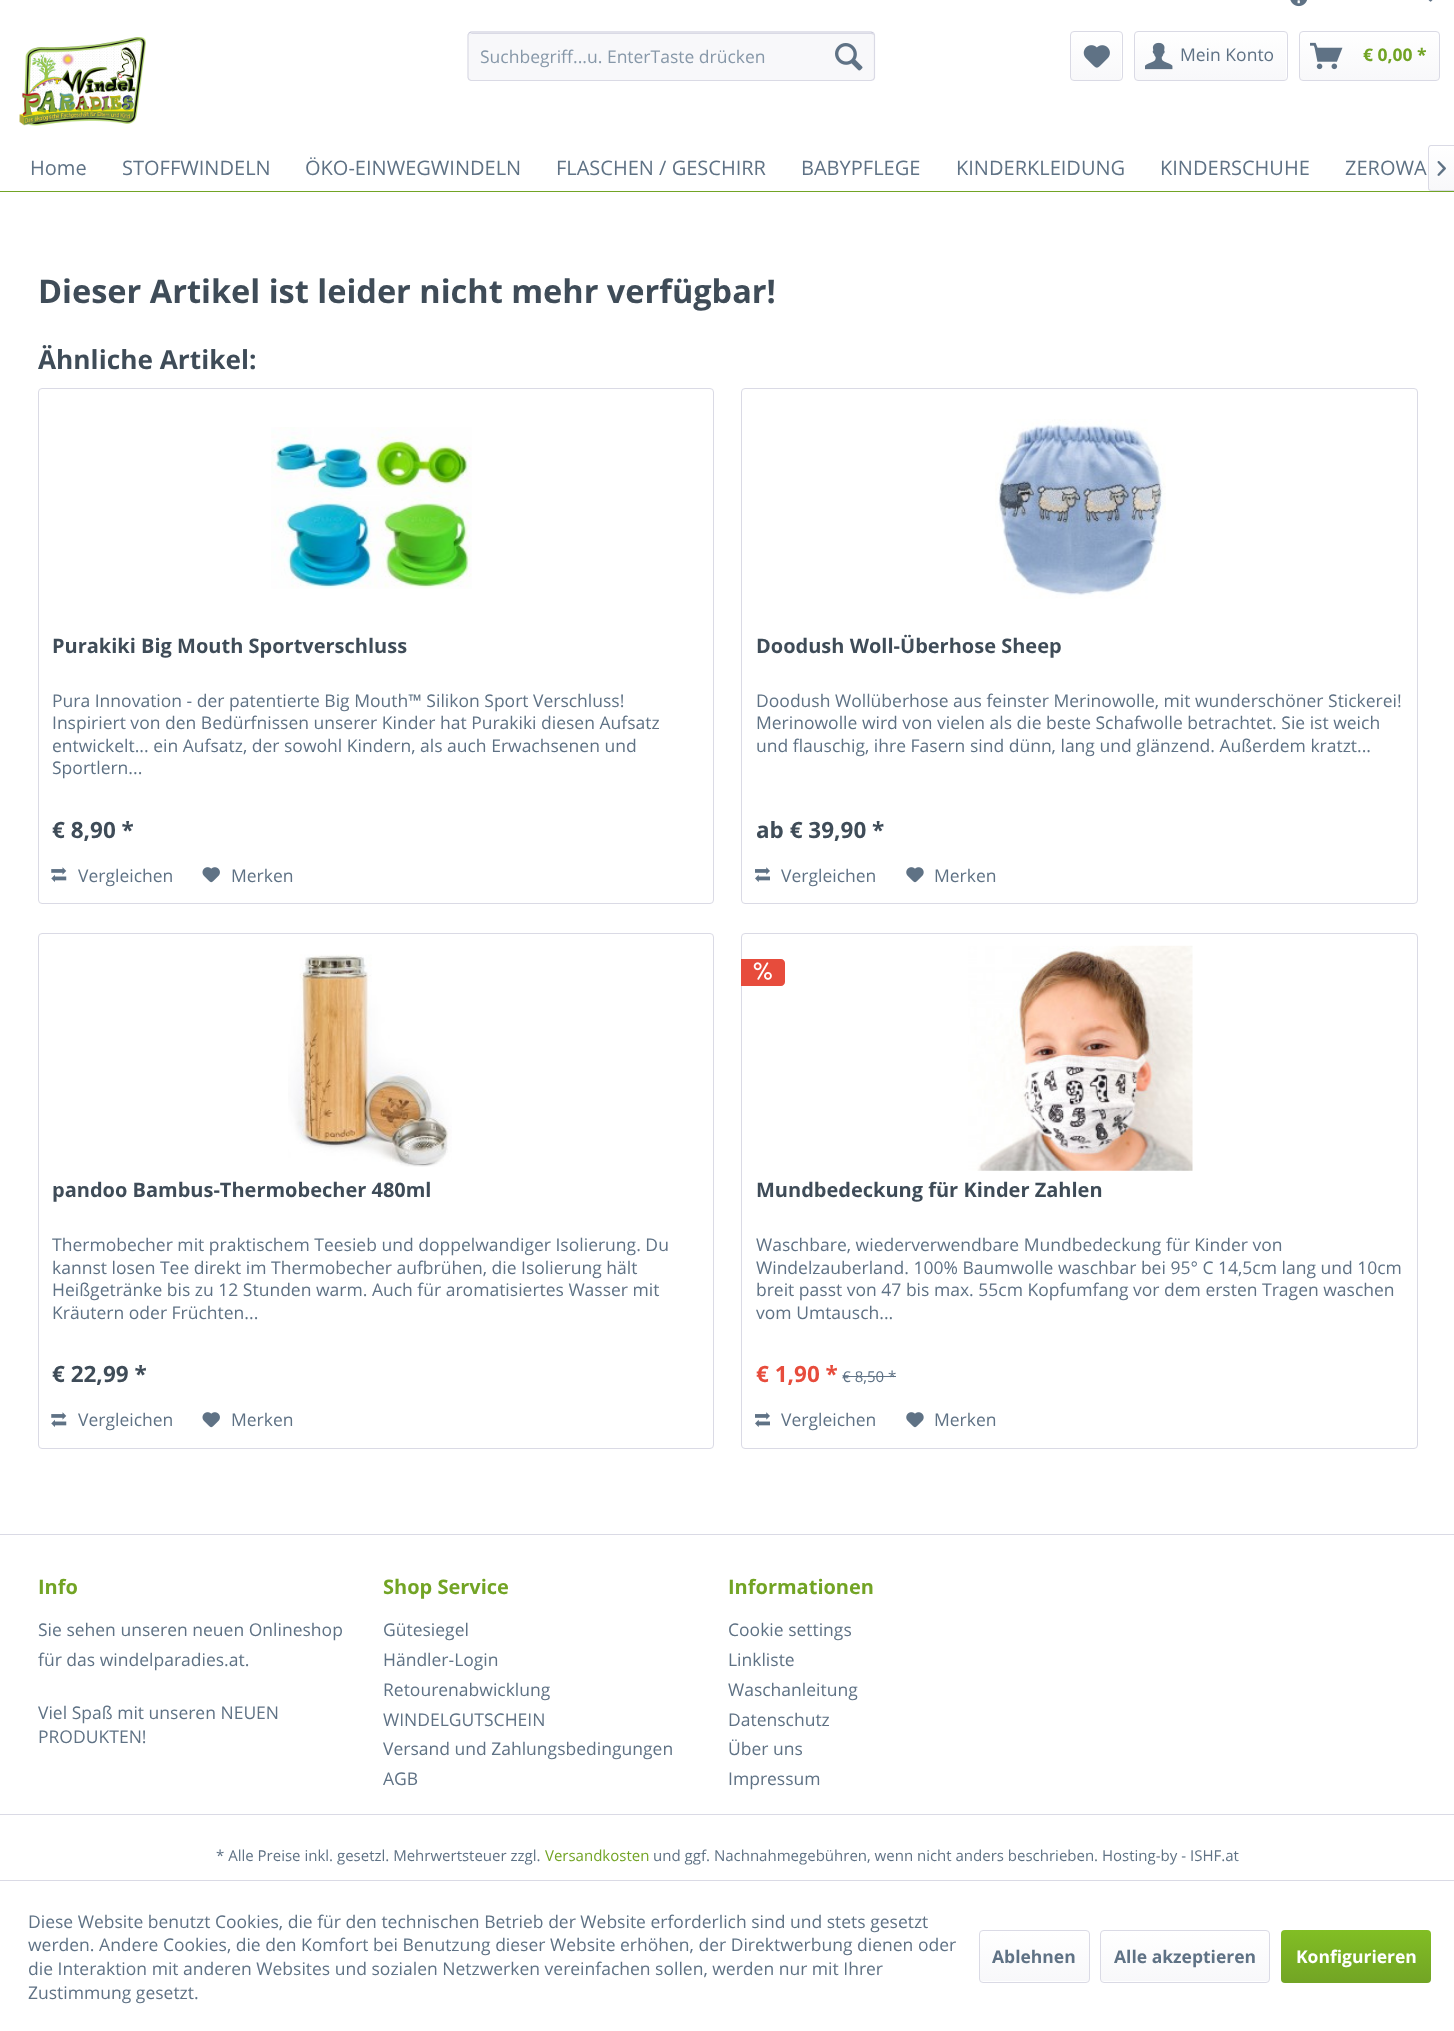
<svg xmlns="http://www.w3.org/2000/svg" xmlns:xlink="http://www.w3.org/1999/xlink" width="1454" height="2031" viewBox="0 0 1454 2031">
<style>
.cls-1{font:17.5px Open Sans;fill:#8798a9}
.cls-2{font:17.5px Open Sans;fill:#5f7285}
.cls-3{font:bold 17.5px Open Sans;fill:#72a425}
.cls-4{font:20px Open Sans;fill:#5f7285}
.cls-5{font:bold 32.5px Open Sans;fill:#3f4c58}
.cls-6{font:bold 26.25px Open Sans;fill:#3f4c58}
.cls-7{font:bold 20px Open Sans;fill:#3f4c58}
.cls-8{font:bold 22.5px Open Sans;fill:#3f4c58}
.cls-9{font:bold 22.5px Open Sans;fill:#e74c3c}
.cls-10{font:15px Open Sans;fill:#5f7285}
.cls-11{font:bold 20px Open Sans;fill:#72a425}
.cls-12{font:15px Open Sans;fill:#72a425}
.cls-13{font:bold 17.5px Open Sans;fill:#5f7285}
.cls-14{font:bold 17.5px Open Sans;fill:#ffffff}
</style>
<defs>
<linearGradient id="g1" gradientUnits="userSpaceOnUse" x1="1096" y1="32" x2="1096" y2="80"><stop offset="0" stop-color="#ffffff"/><stop offset="1" stop-color="#f8f8fa"/></linearGradient>
<linearGradient id="g2" gradientUnits="userSpaceOnUse" x1="1211" y1="32" x2="1211" y2="80"><stop offset="0" stop-color="#ffffff"/><stop offset="1" stop-color="#f8f8fa"/></linearGradient>
<linearGradient id="g3" gradientUnits="userSpaceOnUse" x1="1369" y1="32" x2="1369" y2="80"><stop offset="0" stop-color="#ffffff"/><stop offset="1" stop-color="#f8f8fa"/></linearGradient>
<linearGradient id="g4" gradientUnits="userSpaceOnUse" x1="1442" y1="146" x2="1442" y2="190"><stop offset="0" stop-color="#ffffff"/><stop offset="1" stop-color="#f8f8fa"/></linearGradient>
<linearGradient id="g5" gradientUnits="userSpaceOnUse" x1="1034" y1="1931" x2="1034" y2="1981"><stop offset="0" stop-color="#ffffff"/><stop offset="1" stop-color="#f8f8fa"/></linearGradient>
<linearGradient id="g6" gradientUnits="userSpaceOnUse" x1="1185" y1="1931" x2="1185" y2="1981"><stop offset="0" stop-color="#ffffff"/><stop offset="1" stop-color="#f8f8fa"/></linearGradient>
<linearGradient id="g7" gradientUnits="userSpaceOnUse" x1="1356" y1="1930" x2="1356" y2="1983"><stop offset="0" stop-color="#82be24"/><stop offset="1" stop-color="#72a425"/></linearGradient>
</defs>
<rect width="100%" height="100%" fill="#ffffff"/>
<image xlink:href="image0.png" x="1290" y="0" width="17" height="7"/>
<image xlink:href="image1.png" x="1428" y="0" width="5" height="2"/>
<image xlink:href="image2.png" x="19" y="37" width="127" height="89"/>
<rect fill="#f8f8fa" x="468" y="31" width="407" height="50" rx="4"/>
<path fill="#dadae5" d="M471 34H871C873 34 874 35 874 36C874 34 873 33 872 33H472L470 34L469 36C469 35 470 34 471 34Z"/>
<path fill="none" stroke="#cbcbdb" stroke-width="1.2" d="M469 33L471 32H871L873.5 33"/>
<path fill="none" stroke="#dadae5" stroke-width="1.2" d="M873.5 33L874.5 35V77.5L873.5 79.5L871 80.5H471L469 79.5L468 77.5V35L469 33"/>
<image xlink:href="image3.png" x="835" y="43" width="28" height="28"/>
<rect fill="url(#g1)" x="1071" y="33" width="50" height="47" rx="2.5"/>
<rect fill="none" stroke="#dadae5" x="1070.5" y="31.5" width="52" height="49" rx="3.5"/>
<image xlink:href="image4.png" x="1083" y="45" width="27" height="23"/>
<rect fill="url(#g2)" x="1135" y="33" width="151" height="47" rx="2.5"/>
<rect fill="none" stroke="#dadae5" x="1134.5" y="31.5" width="153" height="49" rx="3.5"/>
<image xlink:href="image5.png" x="1145" y="42" width="28" height="28"/>
<rect fill="url(#g3)" x="1300" y="33" width="139" height="47" rx="2.5"/>
<rect fill="none" stroke="#dadae5" x="1299.5" y="31.5" width="140" height="49" rx="3.5"/>
<image xlink:href="image6.png" x="1310" y="42" width="33" height="28"/>
<rect fill="#72a425" x="0" y="191" width="1454" height="1"/>
<path fill="url(#g4)" d="M1431.5 146H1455V190H1431.5C1430 190 1429 189 1429 187.5V148.5C1429 147 1430 146 1431.5 146Z"/>
<path fill="#dadae5" fill-rule="evenodd" d="M1431 145H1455V191H1431C1429 191 1428 190 1428 188V149C1428 147 1429 145 1431 145ZM1431 146H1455V190H1431C1430 190 1429 189 1429 188V149C1429 147 1430 146 1431 146Z"/>
<image xlink:href="image7.png" x="1437" y="161" width="9" height="15"/>
<rect fill="none" stroke="#dadae5" x="38.5" y="388.5" width="675" height="515" rx="3.5"/>
<image xlink:href="image8.png" x="271" y="427" width="201" height="162"/>
<image xlink:href="image9.png" x="51" y="867" width="16" height="15"/>
<image xlink:href="image10.png" x="202" y="867" width="18" height="16"/>
<rect fill="none" stroke="#dadae5" x="741.5" y="388.5" width="676" height="515" rx="3.5"/>
<image xlink:href="image11.png" x="995" y="419" width="171" height="180"/>
<image xlink:href="image12.png" x="755" y="867" width="15" height="15"/>
<image xlink:href="image13.png" x="906" y="867" width="18" height="16"/>
<rect fill="none" stroke="#dadae5" x="38.5" y="933.5" width="675" height="515" rx="3.5"/>
<image xlink:href="image14.png" x="288" y="954" width="164" height="213"/>
<image xlink:href="image9.png" x="51" y="1412" width="16" height="15"/>
<image xlink:href="image10.png" x="202" y="1412" width="18" height="16"/>
<rect fill="none" stroke="#dadae5" x="741.5" y="933.5" width="676" height="515" rx="3.5"/>
<path fill="#e74c3c" d="M741 959H781C783 959 785 961 785 963V982C785 984 783 986 781 986H741Z"/>
<image xlink:href="image15.png" x="753" y="962" width="19" height="18"/>
<image xlink:href="image16.png" x="968" y="945" width="225" height="226"/>
<rect fill="#5f7285" x="843" y="1376" width="53" height="1"/>
<image xlink:href="image12.png" x="755" y="1412" width="15" height="15"/>
<image xlink:href="image13.png" x="906" y="1412" width="18" height="16"/>
<rect fill="#dadae5" x="0" y="1534" width="1454" height="1"/>
<rect fill="#dadae5" x="0" y="1814" width="1454" height="1"/>
<rect fill="#dadae5" x="0" y="1880" width="1454" height="1"/>
<rect fill="url(#g5)" x="980" y="1931" width="109" height="50" rx="2.5"/>
<rect fill="none" stroke="#dadae5" x="979.5" y="1930.5" width="110" height="52" rx="3.5"/>
<rect fill="url(#g6)" x="1101" y="1931" width="168" height="50" rx="2.5"/>
<rect fill="none" stroke="#dadae5" x="1100.5" y="1930.5" width="169" height="52" rx="3.5"/>
<rect fill="url(#g7)" x="1281" y="1930" width="150" height="53" rx="4"/>
<text class="cls-1" x="480" y="63">Suchbegriff...u. EnterTaste drücken</text>
<text class="cls-2" x="1180" y="61">Mein Konto</text>
<text class="cls-3" x="1363" y="61">€ 0,00 *</text>
<text class="cls-4" x="30" y="175">Home</text>
<text class="cls-4" x="122" y="175">STOFFWINDELN</text>
<text class="cls-4" x="305" y="175">ÖKO-EINWEGWINDELN</text>
<text class="cls-4" x="556" y="175">FLASCHEN / GESCHIRR</text>
<text class="cls-4" x="801" y="175">BABYPFLEGE</text>
<text class="cls-4" x="956" y="175">KINDERKLEIDUNG</text>
<text class="cls-4" x="1160" y="175">KINDERSCHUHE</text>
<text class="cls-4" x="1345" y="175">ZEROWA</text>
<text class="cls-5" x="38" y="303">Dieser Artikel ist leider nicht mehr verfügbar!</text>
<text class="cls-6" x="38" y="369">Ähnliche Artikel:</text>
<text class="cls-7" x="52" y="653">Purakiki Big Mouth Sportverschluss</text>
<text class="cls-2"><tspan x="52" y="707">Pura Innovation - der patentierte Big Mouth™ Silikon Sport Verschluss!</tspan><tspan x="52" y="729">Inspiriert von den Bedürfnissen unserer Kinder hat Purakiki diesen Aufsatz</tspan><tspan x="52" y="752">entwickelt... ein Aufsatz, der sowohl Kindern, als auch Erwachsenen und</tspan><tspan x="52" y="774">Sportlern...</tspan></text>
<text class="cls-8" x="52" y="838">€ 8,90 *</text>
<text class="cls-2" x="78" y="882">Vergleichen</text>
<text class="cls-2" x="231" y="882">Merken</text>
<text class="cls-7" x="756" y="653">Doodush Woll-Überhose Sheep</text>
<text class="cls-2"><tspan x="756" y="707">Doodush Wollüberhose aus feinster Merinowolle, mit wunderschöner Stickerei!</tspan><tspan x="756" y="729">Merinowolle wird von vielen als die beste Schafwolle betrachtet. Sie ist weich</tspan><tspan x="756" y="752">und flauschig, ihre Fasern sind dünn, lang und glänzend. Außerdem kratzt...</tspan></text>
<text class="cls-8" x="756" y="838">ab € 39,90 *</text>
<text class="cls-2" x="781" y="882">Vergleichen</text>
<text class="cls-2" x="934" y="882">Merken</text>
<text class="cls-7" x="52" y="1197">pandoo Bambus-Thermobecher 480ml</text>
<text class="cls-2"><tspan x="52" y="1251">Thermobecher mit praktischem Teesieb und doppelwandiger Isolierung. Du</tspan><tspan x="52" y="1274">kannst losen Tee direkt im Thermobecher aufbrühen, die Isolierung hält</tspan><tspan x="52" y="1296">Heißgetränke bis zu 12 Stunden warm. Auch für aromatisiertes Wasser mit</tspan><tspan x="52" y="1319">Kräutern oder Früchten...</tspan></text>
<text class="cls-8" x="52" y="1382">€ 22,99 *</text>
<text class="cls-2" x="78" y="1426">Vergleichen</text>
<text class="cls-2" x="231" y="1426">Merken</text>
<text class="cls-7" x="756" y="1197">Mundbedeckung für Kinder Zahlen</text>
<text class="cls-2"><tspan x="756" y="1251">Waschbare, wiederverwendbare Mundbedeckung für Kinder von</tspan><tspan x="756" y="1274">Windelzauberland. 100% Baumwolle waschbar bei 95° C 14,5cm lang und 10cm</tspan><tspan x="756" y="1296">breit passt von 47 bis max. 55cm Kopfumfang vor dem ersten Tragen waschen</tspan><tspan x="756" y="1319">vom Umtausch...</tspan></text>
<text class="cls-9" x="756" y="1382">€ 1,90 *</text>
<text class="cls-10" x="842" y="1382">€ 8,50 *</text>
<text class="cls-2" x="781" y="1426">Vergleichen</text>
<text class="cls-2" x="934" y="1426">Merken</text>
<text class="cls-11" x="38" y="1594">Info</text>
<text class="cls-2"><tspan x="38" y="1636">Sie sehen unseren neuen Onlineshop</tspan><tspan x="38" y="1666">für das windelparadies.at.</tspan></text>
<text class="cls-2"><tspan x="38" y="1719">Viel Spaß mit unseren NEUEN</tspan><tspan x="38" y="1743">PRODUKTEN!</tspan></text>
<text class="cls-11" x="383" y="1594">Shop Service</text>
<text class="cls-2"><tspan x="383" y="1636">Gütesiegel</tspan><tspan x="383" y="1666">Händler-Login</tspan><tspan x="383" y="1696">Retourenabwicklung</tspan><tspan x="383" y="1726">WINDELGUTSCHEIN</tspan><tspan x="383" y="1755">Versand und Zahlungsbedingungen</tspan><tspan x="383" y="1785">AGB</tspan></text>
<text class="cls-11" x="728" y="1594">Informationen</text>
<text class="cls-2"><tspan x="728" y="1636">Cookie settings</tspan><tspan x="728" y="1666">Linkliste</tspan><tspan x="728" y="1696">Waschanleitung</tspan><tspan x="728" y="1726">Datenschutz</tspan><tspan x="728" y="1755">Über uns</tspan><tspan x="728" y="1785">Impressum</tspan></text>
<text class="cls-10" x="216" y="1861">* Alle Preise inkl. gesetzl. Mehrwertsteuer zzgl.</text>
<text class="cls-12" x="545" y="1861">Versandkosten</text>
<text class="cls-10" x="653" y="1861">und ggf. Nachnahmegebühren, wenn nicht anders beschrieben. Hosting-by - ISHF.at</text>
<text class="cls-2"><tspan x="28" y="1928">Diese Website benutzt Cookies, die für den technischen Betrieb der Website erforderlich sind und stets gesetzt</tspan><tspan x="28" y="1951">werden. Andere Cookies, die den Komfort bei Benutzung dieser Website erhöhen, der Direktwerbung dienen oder</tspan><tspan x="28" y="1975">die Interaktion mit anderen Websites und sozialen Netzwerken vereinfachen sollen, werden nur mit Ihrer</tspan><tspan x="28" y="1999">Zustimmung gesetzt.</tspan></text>
<text class="cls-13" x="992" y="1963">Ablehnen</text>
<text class="cls-13" x="1114" y="1963">Alle akzeptieren</text>
<text class="cls-14" x="1296" y="1963">Konfigurieren</text>
</svg>
